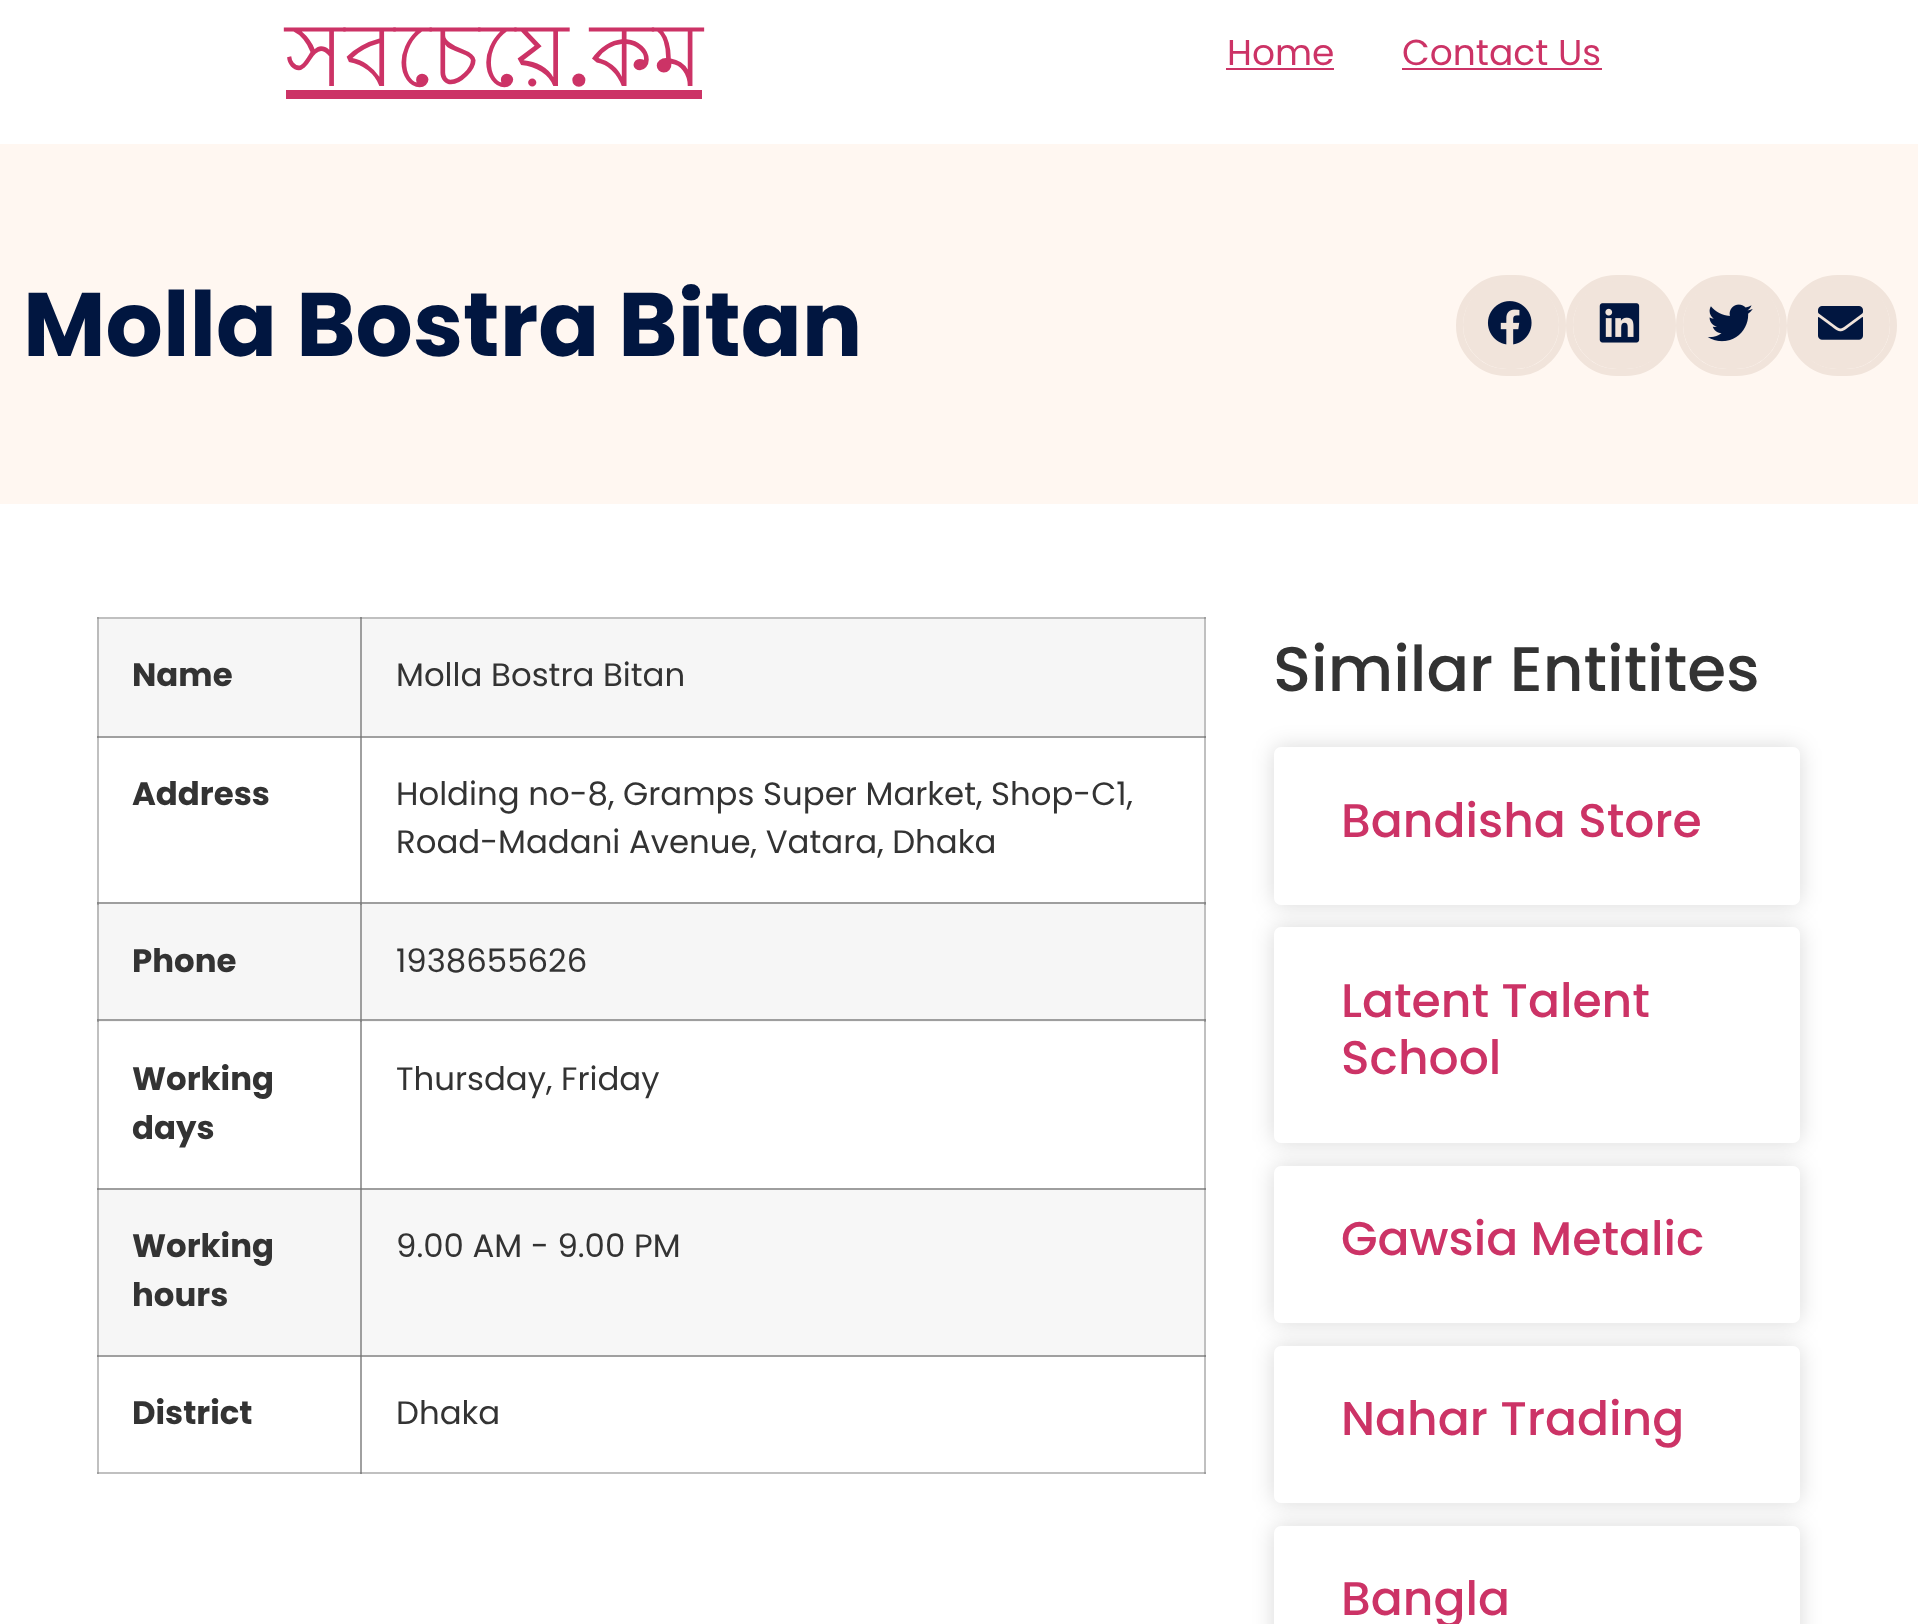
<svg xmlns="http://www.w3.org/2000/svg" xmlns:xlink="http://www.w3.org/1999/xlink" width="1918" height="1624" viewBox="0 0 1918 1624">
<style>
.cls-1{font:90px Lohit Bengali;fill:#cc3366}
.cls-2{font:500 90px Poppins;fill:#cc3366}
.cls-3{font:36px Poppins;fill:#cc3366}
.cls-4{font:bold 90px Poppins;fill:#011640}
.cls-5{font:bold 32.4px Poppins;fill:#333333}
.cls-6{font:32.4px Poppins;fill:#333333}
.cls-7{font:500 63px Poppins;fill:#333333}
.cls-8{font:500 47.25px Poppins;fill:#cc3366}
</style>
<rect width="100%" height="100%" fill="#ffffff"/>
<rect fill="#c0c0c0" x="97" y="617" width="265" height="2"/>
<rect fill="#a0a0a0" x="97" y="617" width="2" height="2"/>
<rect fill="#c0c0c0" x="1204" y="617" width="2" height="740"/>
<rect fill="#c0c0c0" x="97" y="736" width="2" height="169"/>
<rect fill="#a0a0a0" x="97" y="736" width="265" height="2"/>
<rect fill="#888888" x="97" y="736" width="2" height="2"/>
<rect fill="#a0a0a0" x="360" y="736" width="2" height="169"/>
<rect fill="#a0a0a0" x="1204" y="902" width="2" height="3"/>
<rect fill="#888888" x="1204" y="902" width="2" height="2"/>
<rect fill="#c0c0c0" x="97" y="1019" width="2" height="171"/>
<rect fill="#a0a0a0" x="360" y="1019" width="2" height="171"/>
<rect fill="#a0a0a0" x="1204" y="1019" width="2" height="3"/>
<rect fill="#888888" x="1204" y="1019" width="2" height="2"/>
<rect fill="#888888" x="1204" y="1188" width="2" height="2"/>
<rect fill="#c0c0c0" x="97" y="1355" width="2" height="119"/>
<rect fill="#c0c0c0" x="97" y="1472" width="265" height="2"/>
<rect fill="#a0a0a0" x="97" y="1472" width="2" height="2"/>
<rect fill="#a0a0a0" x="97" y="1355" width="265" height="2"/>
<rect fill="#888888" x="97" y="1355" width="2" height="2"/>
<rect fill="#a0a0a0" x="360" y="1355" width="2" height="119"/>
<rect fill="#c0c0c0" x="360" y="1472" width="846" height="2"/>
<rect fill="#888888" x="360" y="1472" width="2" height="2"/>
<rect fill="#c0c0c0" x="1204" y="1355" width="2" height="119"/>
<rect fill="#a0a0a0" x="1204" y="1472" width="2" height="2"/>
<rect fill="#cc3366" x="286" y="90" width="416" height="9"/>
<rect fill="#cc3366" x="1226" y="68" width="108" height="2"/>
<rect fill="#cc3366" x="1402" y="68" width="200" height="2"/>
<rect fill="#fff7f1" x="0" y="144" width="1918" height="360"/>
<rect fill="none" stroke="#f1e4db" stroke-width="7" x="1459.5" y="278.5" width="103" height="94" rx="47"/>
<rect fill="#f1e4db" x="1463" y="281" width="96" height="88" rx="44"/>
<image xlink:href="image0.png" x="1487" y="301" width="45" height="44"/>
<rect fill="none" stroke="#f1e4db" stroke-width="7" x="1569.5" y="278.5" width="103" height="94" rx="47"/>
<rect fill="#f1e4db" x="1573" y="281" width="97" height="88" rx="44"/>
<image xlink:href="image1.png" x="1599" y="303" width="41" height="40"/>
<rect fill="none" stroke="#f1e4db" stroke-width="7" x="1679.5" y="278.5" width="104" height="94" rx="47"/>
<rect fill="#f1e4db" x="1683" y="281" width="97" height="88" rx="44"/>
<image xlink:href="image2.png" x="1707" y="304" width="46" height="38"/>
<rect fill="none" stroke="#f1e4db" stroke-width="7" x="1790.5" y="278.5" width="103" height="94" rx="47"/>
<rect fill="#f1e4db" x="1793" y="281" width="97" height="88" rx="44"/>
<image xlink:href="image3.png" x="1818" y="306" width="45" height="34"/>
<rect fill="#f6f6f6" x="99" y="619" width="261" height="117"/>
<rect fill="#bbbbbb" x="97" y="619" width="2" height="117"/>
<rect fill="#f6f6f6" x="362" y="619" width="842" height="117"/>
<rect fill="#9e9e9e" x="360" y="619" width="2" height="117"/>
<rect fill="#c0c0c0" x="360" y="617" width="846" height="2"/>
<rect fill="#888888" x="360" y="617" width="2" height="2"/>
<rect fill="#a0a0a0" x="1204" y="617" width="2" height="2"/>
<rect fill="#a0a0a0" x="360" y="736" width="846" height="2"/>
<rect fill="#818181" x="360" y="736" width="2" height="2"/>
<rect fill="#888888" x="1204" y="736" width="2" height="2"/>
<rect fill="#f6f6f6" x="99" y="904" width="261" height="118"/>
<rect fill="#bbbbbb" x="97" y="902" width="2" height="120"/>
<rect fill="#9e9e9e" x="97" y="902" width="2" height="3"/>
<rect fill="#9e9e9e" x="97" y="902" width="263" height="2"/>
<rect fill="#888888" x="97" y="902" width="2" height="2"/>
<rect fill="#9e9e9e" x="97" y="1019" width="2" height="3"/>
<rect fill="#9e9e9e" x="97" y="1019" width="263" height="2"/>
<rect fill="#888888" x="97" y="1019" width="2" height="2"/>
<rect fill="#f6f6f6" x="362" y="904" width="842" height="118"/>
<rect fill="#9e9e9e" x="360" y="902" width="2" height="120"/>
<rect fill="#888888" x="360" y="902" width="2" height="3"/>
<rect fill="#9e9e9e" x="360" y="902" width="844" height="2"/>
<rect fill="#818181" x="360" y="902" width="2" height="2"/>
<rect fill="#888888" x="360" y="1019" width="2" height="3"/>
<rect fill="#9e9e9e" x="360" y="1019" width="844" height="2"/>
<rect fill="#818181" x="360" y="1019" width="2" height="2"/>
<rect fill="#f6f6f6" x="99" y="1190" width="261" height="165"/>
<rect fill="#bbbbbb" x="97" y="1188" width="2" height="167"/>
<rect fill="#9e9e9e" x="97" y="1188" width="263" height="2"/>
<rect fill="#888888" x="97" y="1188" width="2" height="2"/>
<rect fill="#f7f7f7" x="362" y="1190" width="842" height="165"/>
<rect fill="#9e9e9e" x="360" y="1188" width="2" height="167"/>
<rect fill="#9e9e9e" x="360" y="1188" width="844" height="2"/>
<rect fill="#818181" x="360" y="1188" width="2" height="2"/>
<rect fill="#a0a0a0" x="360" y="1355" width="846" height="2"/>
<rect fill="#818181" x="360" y="1355" width="2" height="2"/>
<rect fill="#888888" x="1204" y="1355" width="2" height="2"/>
<rect fill="#000000" fill-opacity="0.15" filter="blur(11px)" x="1274" y="747" width="526" height="158" rx="7"/>
<rect fill="#ffffff" x="1274" y="747" width="526" height="158" rx="7"/>
<rect fill="#000000" fill-opacity="0.15" filter="blur(11px)" x="1274" y="927" width="526" height="216" rx="7"/>
<rect fill="#ffffff" x="1274" y="927" width="526" height="216" rx="7"/>
<rect fill="#000000" fill-opacity="0.15" filter="blur(11px)" x="1274" y="1166" width="526" height="157" rx="7"/>
<rect fill="#ffffff" x="1274" y="1166" width="526" height="157" rx="7"/>
<rect fill="#000000" fill-opacity="0.15" filter="blur(11px)" x="1274" y="1346" width="526" height="157" rx="7"/>
<rect fill="#ffffff" x="1274" y="1346" width="526" height="157" rx="7"/>
<rect fill="#000000" fill-opacity="0.15" filter="blur(11px)" x="1274" y="1526" width="526" height="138" rx="7"/>
<rect fill="#ffffff" x="1274" y="1526" width="526" height="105" rx="7"/>
<text class="cls-1" x="285" y="86">সবচেয়ে</text>
<text class="cls-2" x="568" y="86">.</text>
<text class="cls-1" x="590" y="86">কম</text>
<text class="cls-3" x="1227" y="65">Home</text>
<text class="cls-3" x="1402" y="65">Contact Us</text>
<text class="cls-4" x="23" y="356">Molla Bostra Bitan</text>
<text class="cls-5" x="132" y="686">Name</text>
<text class="cls-6" x="396" y="686">Molla Bostra Bitan</text>
<text class="cls-5" x="132" y="805">Address</text>
<text class="cls-6"><tspan x="396" y="805">Holding no-8, Gramps Super Market, Shop-C1,</tspan><tspan x="396" y="853">Road-Madani Avenue, Vatara, Dhaka</tspan></text>
<text class="cls-5" x="132" y="972">Phone</text>
<text class="cls-6" x="396" y="972">1938655626</text>
<text class="cls-5"><tspan x="132" y="1090">Working</tspan><tspan x="132" y="1139">days</tspan></text>
<text class="cls-6" x="396" y="1090">Thursday, Friday</text>
<text class="cls-5"><tspan x="132" y="1257">Working</tspan><tspan x="132" y="1306">hours</tspan></text>
<text class="cls-6" x="396" y="1257">9.00 AM - 9.00 PM</text>
<text class="cls-5" x="132" y="1424">District</text>
<text class="cls-6" x="396" y="1424">Dhaka</text>
<text class="cls-7" x="1273" y="691">Similar Entitites</text>
<text class="cls-8" x="1341" y="837">Bandisha Store</text>
<text class="cls-8"><tspan x="1341" y="1017">Latent Talent</tspan><tspan x="1341" y="1074">School</tspan></text>
<text class="cls-8" x="1341" y="1255">Gawsia Metalic</text>
<text class="cls-8" x="1341" y="1435">Nahar Trading</text>
<text class="cls-8" x="1341" y="1615">Bangla</text>
</svg>
